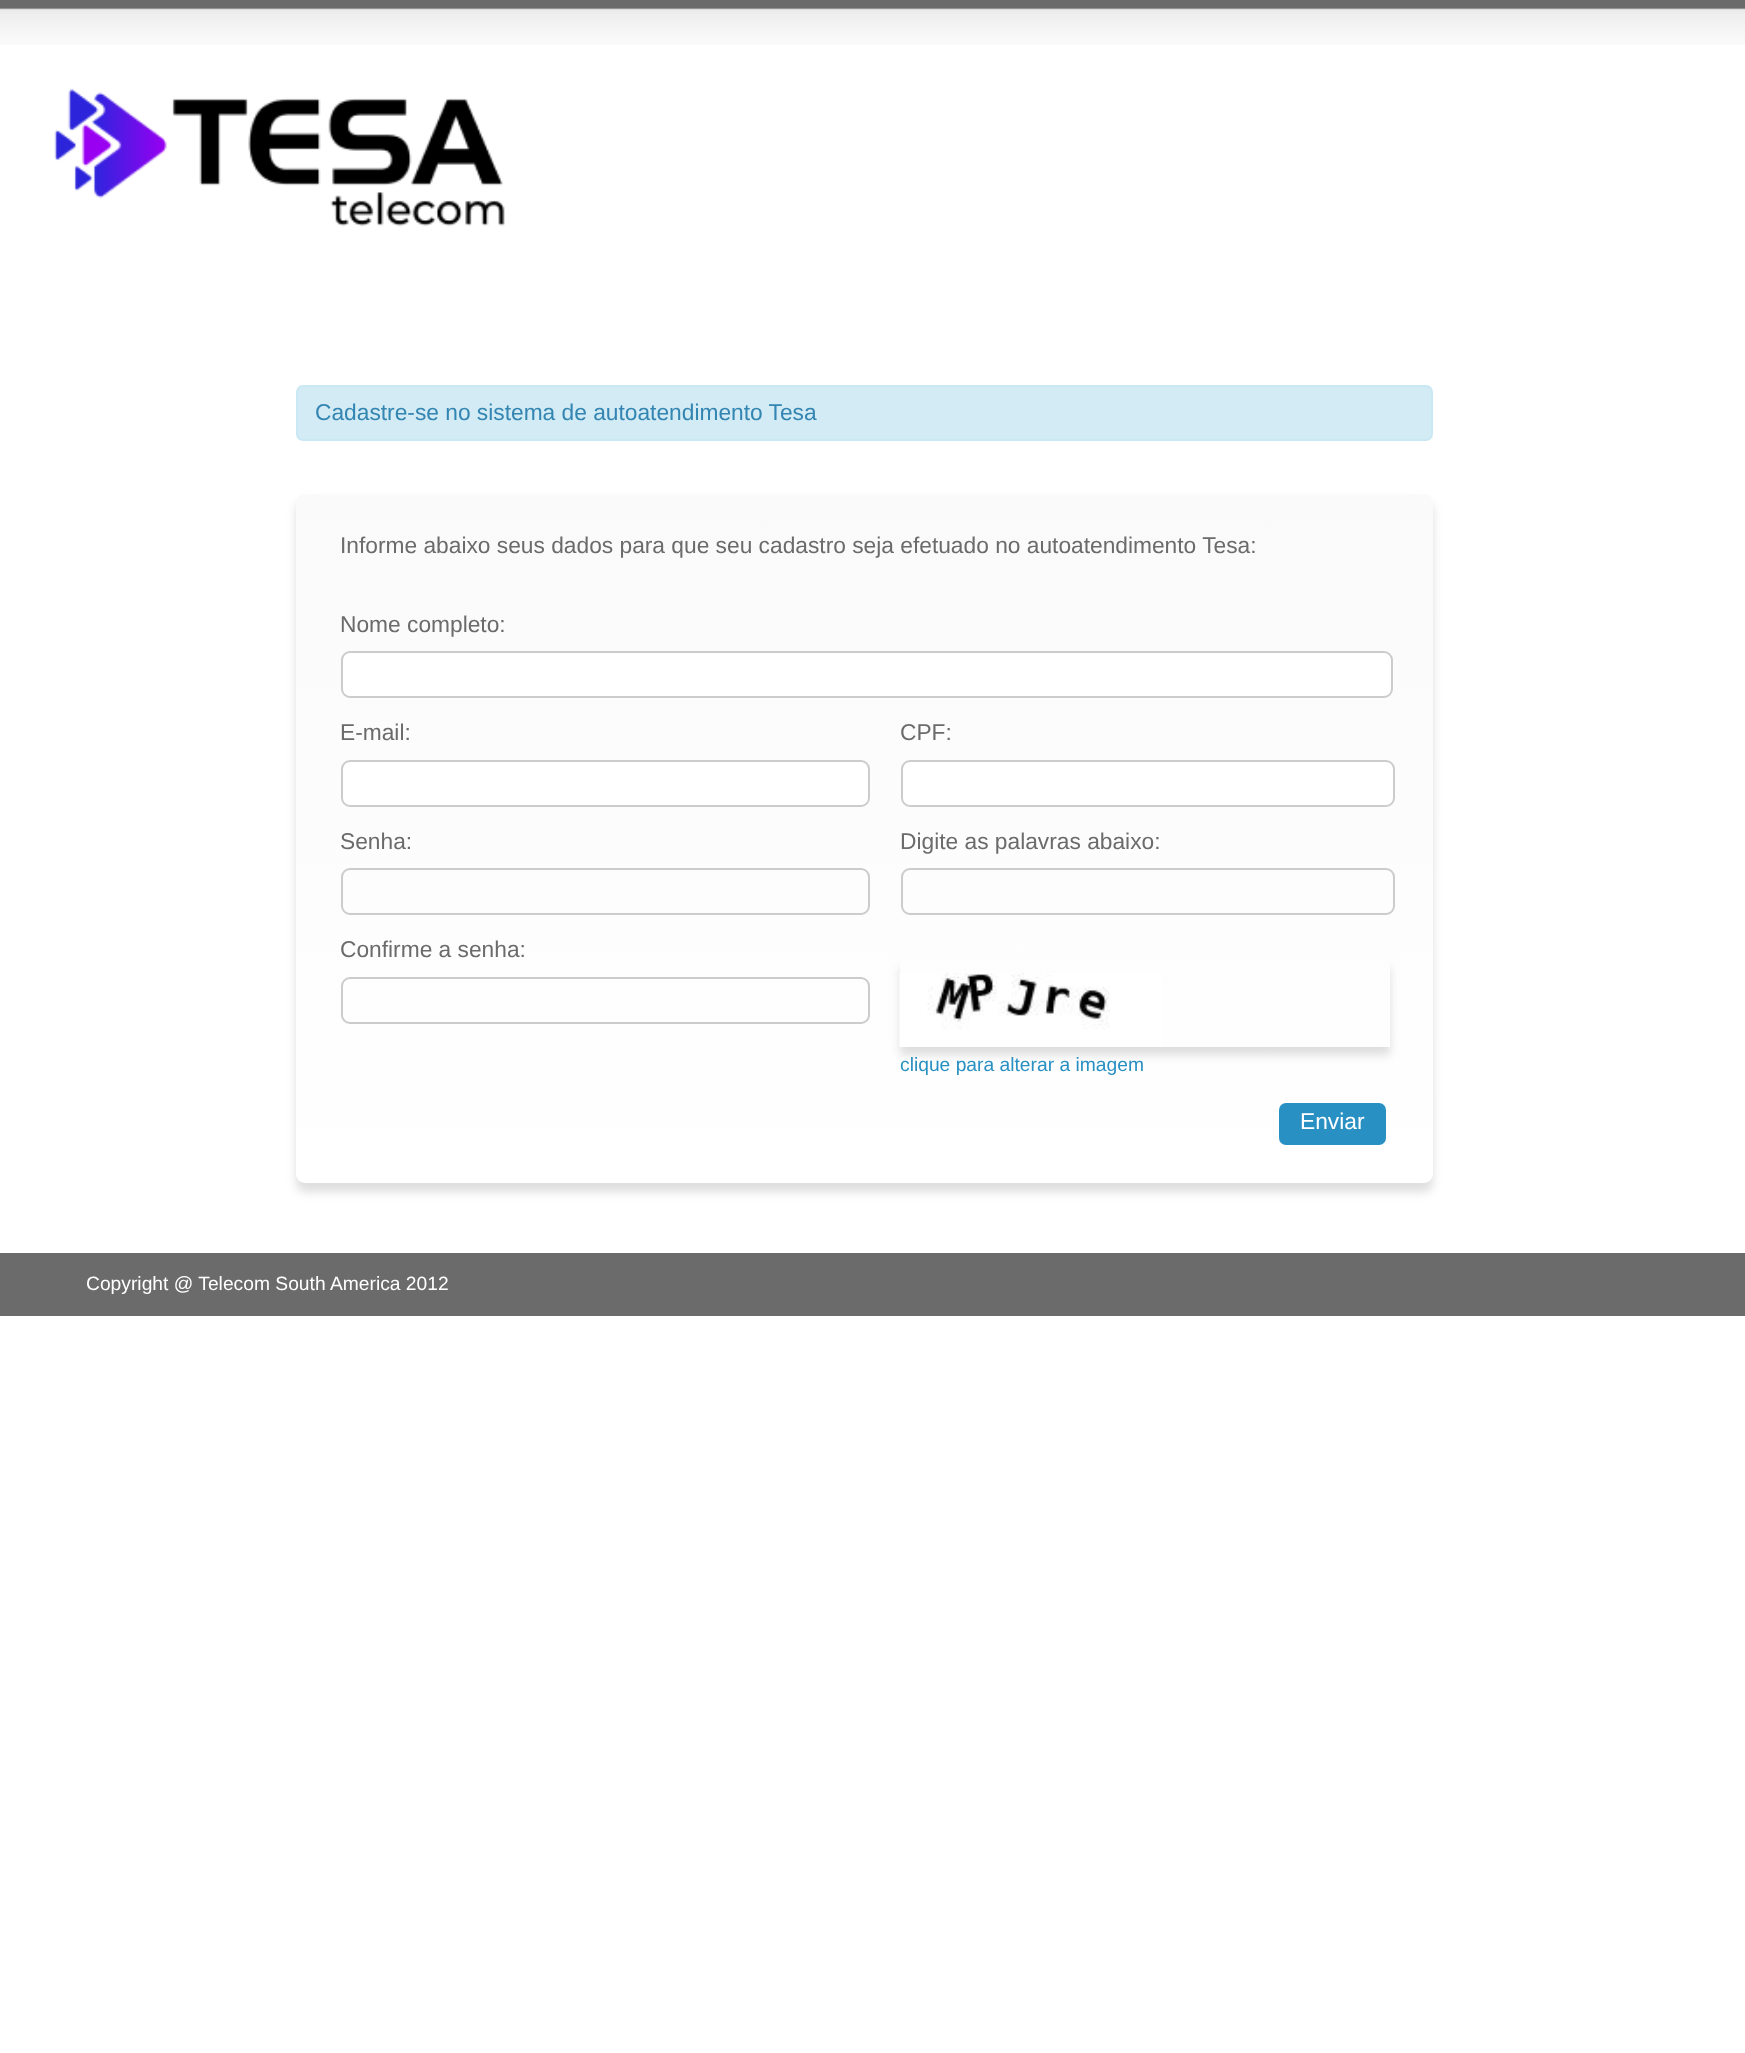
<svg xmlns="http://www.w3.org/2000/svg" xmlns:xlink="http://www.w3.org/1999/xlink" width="1745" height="2053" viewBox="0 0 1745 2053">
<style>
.cls-1{font:22.75px Liberation Sans;fill:#3385b2}
.cls-2{font:22.75px Liberation Sans;fill:#6b6b6b}
.cls-3{font:19.25px Liberation Sans;fill:#2890c2}
.cls-4{font:22.75px Liberation Sans;fill:#ffffff}
.cls-5{font:19.25px Liberation Sans;fill:#ffffff}
</style>
<defs>
<linearGradient id="g1" gradientUnits="userSpaceOnUse" x1="296" y1="494" x2="296" y2="1183"><stop offset="0" stop-color="#fafafa"/><stop offset="1" stop-color="#ffffff"/></linearGradient>
<clipPath id="clip1"><path d="M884 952H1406V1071H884ZM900 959H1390V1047H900Z" clip-rule="evenodd"/></clipPath>
</defs>
<rect width="100%" height="100%" fill="#ffffff"/>
<image xlink:href="image0.png" x="0" y="0" width="1745" height="45"/>
<image xlink:href="image1.png" x="54" y="88" width="451" height="139"/>
<rect fill="#d3ebf5" stroke="#cae7f4" stroke-width="2" x="297" y="386" width="1135" height="54" rx="6"/>
<rect fill="#bebebe" fill-opacity="0.5" filter="blur(5px)" x="296" y="502" width="1137" height="690" rx="9"/>
<rect fill="url(#g1)" x="296" y="494" width="1137" height="689" rx="9"/>
<rect fill="#ffffff" stroke="#cccccc" stroke-width="2" x="342" y="652" width="1050" height="45" rx="8"/>
<rect fill="#ffffff" stroke="#cccccc" stroke-width="2" x="342" y="761" width="527" height="45" rx="8"/>
<rect fill="none" stroke="#cccccc" stroke-width="2" x="342" y="869" width="527" height="45" rx="8"/>
<rect fill="none" stroke="#cccccc" stroke-width="2" x="342" y="978" width="527" height="45" rx="8"/>
<rect fill="#ffffff" stroke="#cccccc" stroke-width="2" x="902" y="761" width="492" height="45" rx="8"/>
<rect fill="none" stroke="#cccccc" stroke-width="2" x="902" y="869" width="492" height="45" rx="8"/>
<g clip-path="url(#clip1)">
<rect fill="#bebebe" fill-opacity="0.5" filter="blur(5px)" x="900" y="968" width="490" height="87"/>
</g>
<image xlink:href="image2.png" x="899" y="973" width="263" height="74"/>
<rect fill="#2890c2" x="1279" y="1103" width="107" height="42" rx="7"/>
<rect fill="#6b6b6b" x="0" y="1253" width="1745" height="63"/>
<text class="cls-1" x="315" y="420">Cadastre-se no sistema de autoatendimento Tesa</text>
<text class="cls-2" x="340" y="553">Informe abaixo seus dados para que seu cadastro seja efetuado no autoatendimento Tesa:</text>
<text class="cls-2" x="340" y="632">Nome completo:</text>
<text class="cls-2" x="340" y="740">E-mail:</text>
<text class="cls-2" x="340" y="849">Senha:</text>
<text class="cls-2" x="340" y="957">Confirme a senha:</text>
<text class="cls-2" x="900" y="740">CPF:</text>
<text class="cls-2" x="900" y="849">Digite as palavras abaixo:</text>
<text class="cls-3" x="900" y="1071">clique para alterar a imagem</text>
<text class="cls-4" x="1300" y="1129">Enviar</text>
<text class="cls-5" x="86" y="1290">Copyright @ Telecom South America 2012</text>
</svg>
